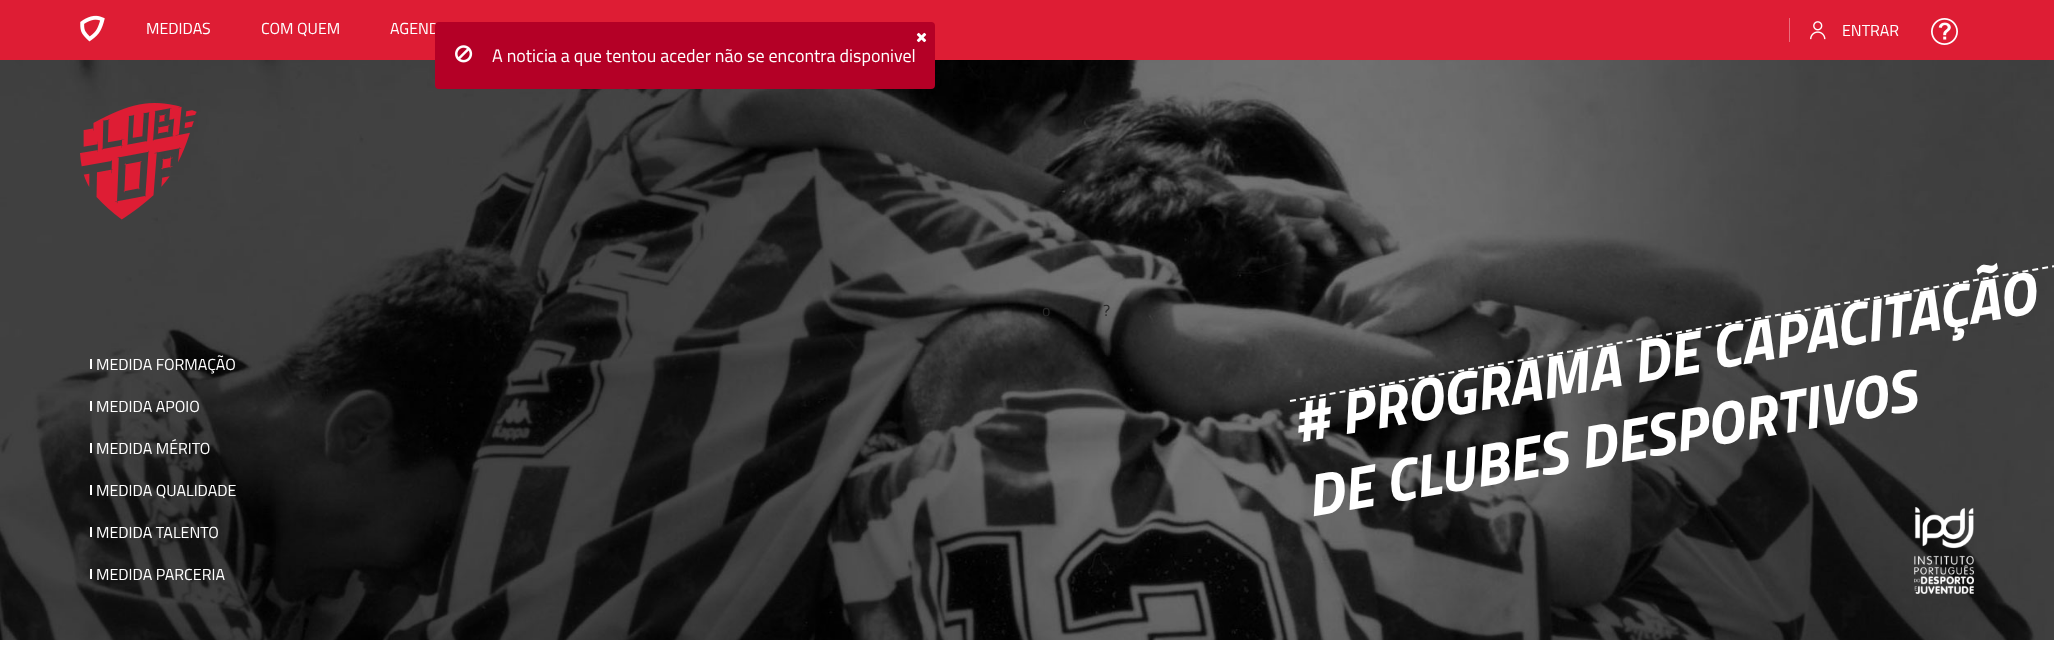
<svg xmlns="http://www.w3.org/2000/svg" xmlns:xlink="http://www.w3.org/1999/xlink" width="2054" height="659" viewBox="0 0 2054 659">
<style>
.cls-1{font:16px Titillium Web;fill:#ffffff}
.cls-2{font:italic bold 60px Titillium Web;fill:#ffffff}
.cls-3{font:16px Titillium Web;fill:#292929}
.cls-4{font:18px Titillium Web;fill:#ffffff}
</style>
<rect width="100%" height="100%" fill="#ffffff"/>
<rect fill="#de1d34" x="0" y="0" width="2054" height="60"/>
<image xlink:href="image0.png" x="80" y="15" width="25" height="27"/>
<rect fill="#ea6e7d" x="1789" y="18" width="1" height="24"/>
<image xlink:href="image1.png" x="1810" y="21" width="16" height="19"/>
<image xlink:href="image2.png" x="1931" y="18" width="27" height="27"/>
<image xlink:href="image3.png" x="0" y="60" width="2054" height="580"/>
<image xlink:href="image4.png" x="80" y="103" width="117" height="117"/>
<rect fill="#ffffff" x="90" y="359" width="2" height="10"/>
<rect fill="#ffffff" x="90" y="401" width="2" height="10"/>
<rect fill="#ffffff" x="90" y="443" width="2" height="10"/>
<rect fill="#ffffff" x="90" y="485" width="2" height="10"/>
<rect fill="#ffffff" x="90" y="527" width="2" height="10"/>
<rect fill="#ffffff" x="90" y="569" width="2" height="10"/>
<image xlink:href="image5.png" x="1914" y="507" width="60" height="87"/>
<path fill="none" stroke="#ffffff" stroke-width="2" stroke-dasharray="6 4.05" d="M1290 401L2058 265.5"/>
<text class="cls-1" x="146" y="34">MEDIDAS</text>
<text class="cls-1" x="261" y="34">COM QUEM</text>
<text class="cls-1" x="390" y="34">AGEND</text>
<text class="cls-1" x="1842" y="36">ENTRAR</text>
<text class="cls-1" x="96" y="370">MEDIDA FORMAÇÃO</text>
<text class="cls-1" x="96" y="412">MEDIDA APOIO</text>
<text class="cls-1" x="96" y="454">MEDIDA MÉRITO</text>
<text class="cls-1" x="96" y="496">MEDIDA QUALIDADE</text>
<text class="cls-1" x="96" y="538">MEDIDA TALENTO</text>
<text class="cls-1" x="96" y="580">MEDIDA PARCERIA</text>
<text class="cls-2" x="1297" y="443" transform="rotate(-10 1297 443)"># PROGRAMA DE CAPACITAÇÃO</text>
<text class="cls-2" x="1310" y="517" transform="rotate(-10 1310 517)">DE CLUBES DESPORTIVOS</text>
<text class="cls-3" x="1042" y="316">o</text>
<text class="cls-3" x="1103" y="316">?</text>
<rect fill="#b40026" x="435" y="22" width="500" height="67" rx="4"/>
<image xlink:href="image6.png" x="916" y="32" width="11" height="11"/>
<image xlink:href="image7.png" x="455" y="45" width="18" height="18"/>
<text class="cls-4" x="492" y="62">A noticia a que tentou aceder não se encontra disponivel</text>
</svg>
